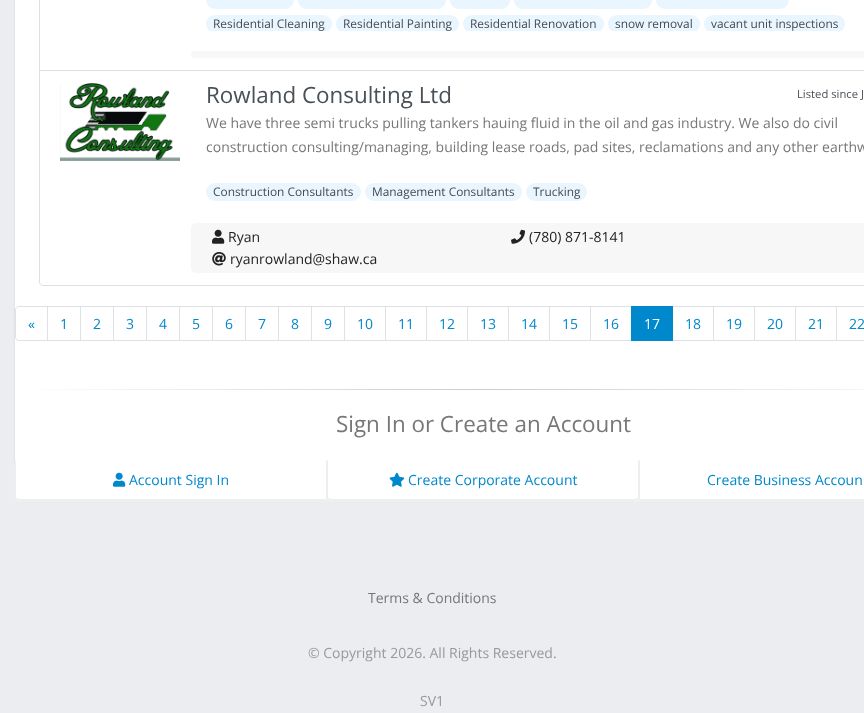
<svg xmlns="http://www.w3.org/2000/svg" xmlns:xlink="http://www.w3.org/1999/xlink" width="864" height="713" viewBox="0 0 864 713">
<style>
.cls-1{font:11.9px Open Sans;fill:#454a50}
.cls-2{font:22.4px Open Sans;fill:#495057}
.cls-3{font:11.25px Open Sans;fill:#495057}
.cls-4{font:14px Open Sans;fill:#777777}
.cls-5{font:14px Open Sans;fill:#222222}
.cls-6{font:14px Open Sans;fill:#0088cc}
.cls-7{font:14px Open Sans;fill:#ffffff}
.cls-8{font:22.4px Open Sans;fill:#777777}
.cls-9{font:14px Open Sans;fill:#999999}
</style>
<defs>
<clipPath id="clip1"><rect x="206" y="0" width="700" height="31"/></clipPath>
<linearGradient id="g1" gradientUnits="userSpaceOnUse" x1="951" y1="390" x2="15" y2="389"><stop offset="0" stop-color="#ffffff"/><stop offset="0.5" stop-color="#cccccc"/><stop offset="1" stop-color="#ffffff"/></linearGradient>
</defs>
<rect width="100%" height="100%" fill="#ecedf0"/>
<rect fill="#000000" fill-opacity="0.1" filter="blur(1px)" x="15" y="-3" width="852" height="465"/>
<rect fill="#ffffff" x="15" y="0" width="849" height="460"/>
<rect fill="none" stroke="#dfdfdf" x="39.5" y="-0.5" width="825" height="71"/>
<rect fill="#e9f5ff" x="206" y="-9" width="88" height="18" rx="9"/>
<rect fill="#e9f5ff" x="298" y="-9" width="148" height="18" rx="9"/>
<rect fill="#e9f5ff" x="450" y="-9" width="60" height="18" rx="9"/>
<rect fill="#e9f5ff" x="514" y="-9" width="138" height="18" rx="9"/>
<rect fill="#e9f5ff" x="656" y="-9" width="133" height="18" rx="9"/>
<g clip-path="url(#clip1)">
<rect fill="#e9f5ff" x="206" y="15" width="126" height="18" rx="9"/>
<rect fill="#e9f5ff" x="336" y="15" width="123" height="18" rx="9"/>
<rect fill="#e9f5ff" x="463" y="15" width="141" height="18" rx="9"/>
<rect fill="#e9f5ff" x="608" y="15" width="92" height="18" rx="9"/>
<rect fill="#e9f5ff" x="704" y="15" width="141" height="18" rx="9"/>
</g>
<rect fill="#f7f7f7" x="191" y="51" width="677" height="7" rx="3.5"/>
<path fill="#ffffff" stroke="#dfdfdf" d="M39.5 70.5H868.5V282C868.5 284 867 285.5 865 285.5H43C41 285.5 39.5 284 39.5 282Z"/>
<image xlink:href="image0.png" x="60" y="83" width="120" height="78"/>
<rect fill="#e9f5ff" x="206" y="183" width="155" height="18" rx="9"/>
<rect fill="#e9f5ff" x="365" y="183" width="157" height="18" rx="9"/>
<rect fill="#e9f5ff" x="526" y="183" width="61" height="18" rx="9"/>
<rect fill="#f7f7f7" x="191" y="223" width="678" height="50" rx="5"/>
<image xlink:href="image1.png" x="212" y="229" width="13" height="15"/>
<image xlink:href="image2.png" x="212" y="252" width="14" height="14"/>
<image xlink:href="image3.png" x="511" y="229" width="14" height="15"/>
<path fill="none" stroke="#dee2e6" d="M19 306.5H47.5V340.5H19C17 340.5 15.5 339 15.5 337V310C15.5 308 17 306.5 19 306.5Z"/>
<rect fill="none" stroke="#dee2e6" x="47.5" y="306.5" width="33" height="34"/>
<rect fill="none" stroke="#dee2e6" x="80.5" y="306.5" width="33" height="34"/>
<rect fill="none" stroke="#dee2e6" x="113.5" y="306.5" width="33" height="34"/>
<rect fill="none" stroke="#dee2e6" x="146.5" y="306.5" width="33" height="34"/>
<rect fill="none" stroke="#dee2e6" x="179.5" y="306.5" width="33" height="34"/>
<rect fill="none" stroke="#dee2e6" x="212.5" y="306.5" width="33" height="34"/>
<rect fill="none" stroke="#dee2e6" x="245.5" y="306.5" width="33" height="34"/>
<rect fill="none" stroke="#dee2e6" x="278.5" y="306.5" width="33" height="34"/>
<rect fill="none" stroke="#dee2e6" x="311.5" y="306.5" width="33" height="34"/>
<rect fill="none" stroke="#dee2e6" x="344.5" y="306.5" width="41" height="34"/>
<rect fill="none" stroke="#dee2e6" x="385.5" y="306.5" width="41" height="34"/>
<rect fill="none" stroke="#dee2e6" x="426.5" y="306.5" width="41" height="34"/>
<rect fill="none" stroke="#dee2e6" x="467.5" y="306.5" width="41" height="34"/>
<rect fill="none" stroke="#dee2e6" x="508.5" y="306.5" width="41" height="34"/>
<rect fill="none" stroke="#dee2e6" x="549.5" y="306.5" width="41" height="34"/>
<rect fill="none" stroke="#dee2e6" x="590.5" y="306.5" width="41" height="34"/>
<rect fill="none" stroke="#dee2e6" x="672.5" y="306.5" width="41" height="34"/>
<rect fill="#0088cc" x="631" y="306" width="42" height="35"/>
<rect fill="none" stroke="#dee2e6" x="713.5" y="306.5" width="41" height="34"/>
<rect fill="none" stroke="#dee2e6" x="754.5" y="306.5" width="41" height="34"/>
<rect fill="none" stroke="#dee2e6" x="795.5" y="306.5" width="41" height="34"/>
<rect fill="none" stroke="#dee2e6" x="836.5" y="306.5" width="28" height="34"/>
<rect fill="url(#g1)" x="38" y="389" width="826" height="1"/>
<path fill="#ffffff" d="M15 460H327V502H20C17 502 15 500 15 497Z"/>
<path fill="#eeeeee" d="M327 460L326 461V499L327 502Z"/>
<path fill="#eeeeee" d="M327 502L326 499H20C19 499 17 498 16 498V500C17 501 18 502 20 502Z"/>
<path fill="#eeeeee" d="M16 461L15 460V497C15 498 15.5 499 15.5 500L16.5 498L16 497Z"/>
<image xlink:href="image4.png" x="113" y="472" width="13" height="15"/>
<path fill="#ffffff" d="M327 460H639V497C639 500 637 502 634 502H332C329 502 327 500 327 497Z"/>
<path fill="#eeeeee" d="M639 460L638 461V497L637.5 498L638.5 500C638.5 499 639 498 639 497Z"/>
<path fill="#eeeeee" d="M332 502H634C636 502 637 501 638 500V498C637 498 635 499 634 499H332C331 499 329 498 328 498V500C329 501 330 502 332 502Z"/>
<path fill="#eeeeee" d="M328 461L327 460V497C327 498 327.5 499 327.5 500L328.5 498L328 497Z"/>
<image xlink:href="image5.png" x="389" y="472" width="16" height="15"/>
<rect fill="#ffffff" x="639" y="460" width="225" height="42"/>
<path fill="#eeeeee" d="M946 502C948 502 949 501 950 500V498L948 499H640L639 502Z"/>
<path fill="#eeeeee" d="M639 460V502L640 499V461Z"/>
<text class="cls-1" x="213" y="28">Residential Cleaning</text>
<text class="cls-1" x="343" y="28">Residential Painting</text>
<text class="cls-1" x="470" y="28">Residential Renovation</text>
<text class="cls-1" x="615" y="28">snow removal</text>
<text class="cls-1" x="711" y="28">vacant unit inspections</text>
<text class="cls-2" x="206" y="103">Rowland Consulting Ltd</text>
<text class="cls-3" x="797" y="98">Listed since J</text>
<text class="cls-4"><tspan x="206" y="128">We have three semi trucks pulling tankers hauing fluid in the oil and gas industry. We also do civil</tspan><tspan x="206" y="152">construction consulting/managing, building lease roads, pad sites, reclamations and any other earthw</tspan></text>
<text class="cls-1" x="213" y="196">Construction Consultants</text>
<text class="cls-1" x="372" y="196">Management Consultants</text>
<text class="cls-1" x="533" y="196">Trucking</text>
<text class="cls-5" x="228" y="242">Ryan</text>
<text class="cls-5" x="230" y="264">ryanrowland@shaw.ca</text>
<text class="cls-5" x="529" y="242">(780) 871-8141</text>
<text class="cls-6" x="28" y="329">«</text>
<text class="cls-6" x="60" y="329">1</text>
<text class="cls-6" x="93" y="329">2</text>
<text class="cls-6" x="126" y="329">3</text>
<text class="cls-6" x="159" y="329">4</text>
<text class="cls-6" x="192" y="329">5</text>
<text class="cls-6" x="225" y="329">6</text>
<text class="cls-6" x="258" y="329">7</text>
<text class="cls-6" x="291" y="329">8</text>
<text class="cls-6" x="324" y="329">9</text>
<text class="cls-6" x="357" y="329">10</text>
<text class="cls-6" x="398" y="329">11</text>
<text class="cls-6" x="439" y="329">12</text>
<text class="cls-6" x="480" y="329">13</text>
<text class="cls-6" x="521" y="329">14</text>
<text class="cls-6" x="562" y="329">15</text>
<text class="cls-6" x="603" y="329">16</text>
<text class="cls-7" x="644" y="329">17</text>
<text class="cls-6" x="685" y="329">18</text>
<text class="cls-6" x="726" y="329">19</text>
<text class="cls-6" x="767" y="329">20</text>
<text class="cls-6" x="808" y="329">21</text>
<text class="cls-6" x="849" y="329">22</text>
<text class="cls-8" x="336" y="432">Sign In or Create an Account</text>
<text class="cls-6" x="129" y="485">Account Sign In</text>
<text class="cls-6" x="408" y="485">Create Corporate Account</text>
<text class="cls-6" x="707" y="485">Create Business Accoun</text>
<text class="cls-4" x="368" y="603">Terms &amp; Conditions</text>
<text class="cls-9" x="308" y="658">© Copyright 2026. All Rights Reserved.</text>
<text class="cls-9" x="420" y="706">SV1</text>
</svg>
